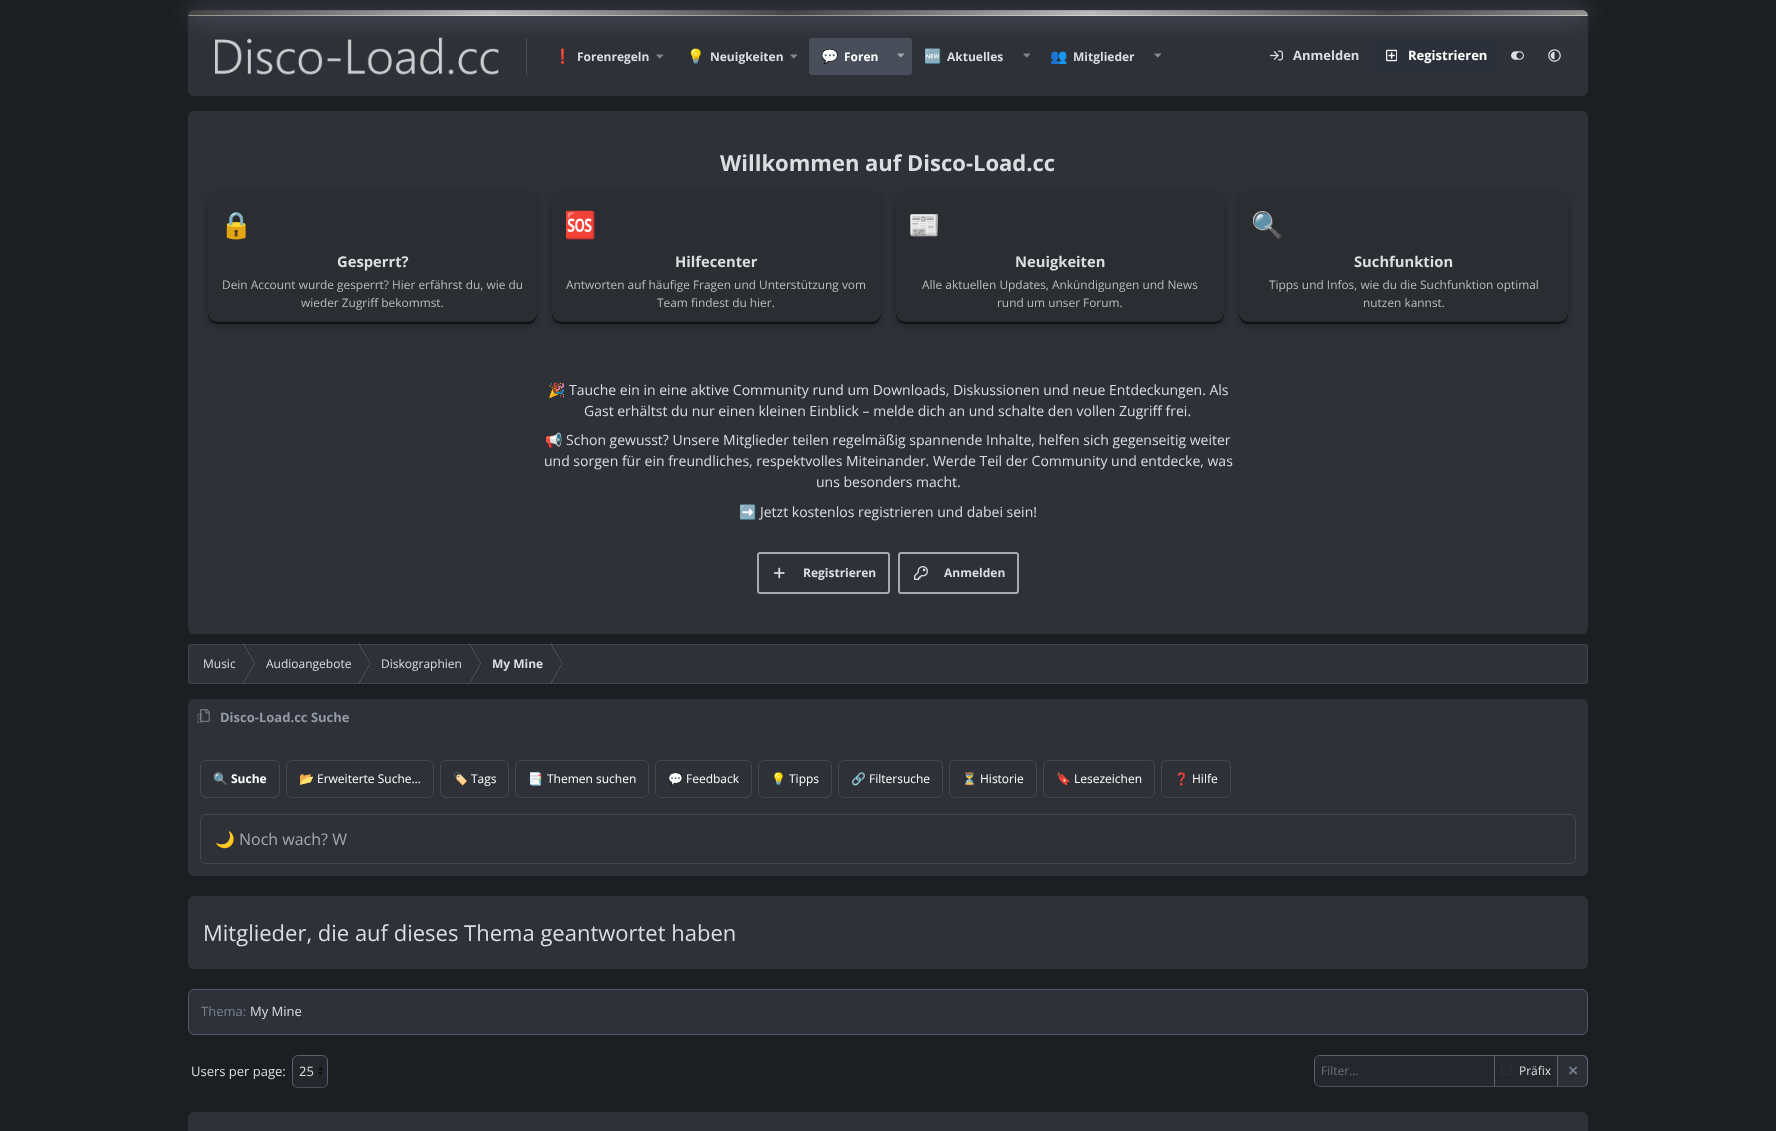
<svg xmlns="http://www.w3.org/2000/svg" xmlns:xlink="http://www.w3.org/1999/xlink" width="1776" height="1131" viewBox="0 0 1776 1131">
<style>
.cls-1{font:bold 14px Noto Color Emoji;fill:#dbdde1}
.cls-2{font:bold 12px Open Sans;fill:#dbdde1}
.cls-3{font:bold 14px Noto Color Emoji;fill:#ffffff}
.cls-4{font:bold 12px Open Sans;fill:#ffffff}
.cls-5{font:bold 13px Open Sans;fill:#dbdde1}
.cls-6{font:bold 13px Open Sans;fill:#ffffff}
.cls-7{font:bold 22px Open Sans;fill:#dbdde1}
.cls-8{font:26px Noto Color Emoji;fill:#dbdde1}
.cls-9{font:bold 14.75px Open Sans;fill:#dbdde1}
.cls-10{font:11.9px Open Sans;fill:#bbbbbb}
.cls-11{font:14px Noto Color Emoji;fill:#dbdde1}
.cls-12{font:14px Open Sans;fill:#dbdde1}
.cls-13{font:12px Open Sans;fill:#dbdde1}
.cls-14{font:bold 13px Open Sans;fill:#949ba8}
.cls-15{font:bold 12px Noto Color Emoji;fill:#ffffff}
.cls-16{font:12px Noto Color Emoji;fill:#ffffff}
.cls-17{font:12px Open Sans;fill:#ffffff}
.cls-18{font:16px Noto Color Emoji;fill:#a7a9ae}
.cls-19{font:16px Open Sans;fill:#a7a9ae}
.cls-20{font:22px Open Sans;fill:#dbdde1}
.cls-21{font:13px Open Sans;fill:#788191}
.cls-22{font:13px Open Sans;fill:#dbdde1}
.cls-23{font:12px Open Sans;fill:#6e7075}
</style>
<defs>
<clipPath id="clip1"><path d="M194 10H1582C1585.5 10 1588 12.5 1588 16H188C188 12.5 190.5 10 194 10Z"/></clipPath>
<linearGradient id="g1" gradientUnits="userSpaceOnUse" x1="-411" y1="13" x2="189" y2="13"><stop offset="0" stop-color="#454545"/><stop offset="0.5" stop-color="#bababa"/><stop offset="1" stop-color="#454545"/></linearGradient>
<linearGradient id="g2" gradientUnits="userSpaceOnUse" x1="189" y1="13" x2="789" y2="13"><stop offset="0" stop-color="#454545"/><stop offset="0.5" stop-color="#bababa"/><stop offset="1" stop-color="#454545"/></linearGradient>
<linearGradient id="g3" gradientUnits="userSpaceOnUse" x1="789" y1="13" x2="1389" y2="13"><stop offset="0" stop-color="#454545"/><stop offset="0.5" stop-color="#bababa"/><stop offset="1" stop-color="#454545"/></linearGradient>
<linearGradient id="g4" gradientUnits="userSpaceOnUse" x1="1389" y1="13" x2="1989" y2="13"><stop offset="0" stop-color="#454545"/><stop offset="0.5" stop-color="#bababa"/><stop offset="1" stop-color="#454545"/></linearGradient>
</defs>
<rect width="100%" height="100%" fill="#1c1e22"/>
<rect fill="#2e3138" x="188" y="10" width="1400" height="86" rx="6"/>
<image xlink:href="image0.png" x="215" y="37" width="284" height="38"/>
<rect fill="#4a4f5a" x="526" y="38" width="1" height="37"/>
<image xlink:href="image6.png" x="1511" y="51" width="13" height="9"/>
<image xlink:href="image7.png" x="1548" y="49" width="13" height="13"/>
<rect fill="#788191" filter="blur(12.5px)" x="188" y="10" width="1400" height="6" rx="6"/>
<g clip-path="url(#clip1)">
<rect fill="url(#g1)" x="188" y="10" width="1" height="6"/>
<rect fill="url(#g2)" x="189" y="10" width="600" height="6"/>
</g>
<rect fill="url(#g3)" x="789" y="10" width="600" height="6"/>
<g clip-path="url(#clip1)">
<rect fill="url(#g4)" x="1389" y="10" width="199" height="6"/>
</g>
<path fill="#000000" fill-opacity="0.1" d="M194 10C192 10 191 11 190 12C191 12 192 11 194 11H1582C1584 11 1585 12 1586 12C1585 11 1584 10 1582 10Z"/>
<path fill="#000000" fill-opacity="0.1" d="M1586 12C1587 13 1588 14.5 1588 16L1587 15C1586.5 14 1586.5 13 1585.5 12.5Z"/>
<path fill="#ffffff" fill-opacity="0.4" fill-rule="evenodd" d="M1588 16L1587 15H189L188 16ZM189 15V16ZM1587 15V16Z"/>
<path fill="#000000" fill-opacity="0.1" d="M188 16L189 15C189.5 14 189.5 13 190.5 12.5L190 12C189 13 188 14.5 188 16Z"/>
<image xlink:href="image1.png" x="656" y="54" width="8" height="5"/>
<image xlink:href="image1.png" x="790" y="54" width="8" height="5"/>
<rect fill="#494f5a" x="809" y="38" width="103" height="37" rx="3"/>
<image xlink:href="image2.png" x="897" y="53" width="8" height="5"/>
<image xlink:href="image1.png" x="1023" y="53" width="8" height="5"/>
<image xlink:href="image3.png" x="1154" y="53" width="7" height="5"/>
<image xlink:href="image4.png" x="1270" y="50" width="13" height="11"/>
<rect fill="#2b303b" x="1371" y="38" width="128" height="36" rx="3"/>
<image xlink:href="image5.png" x="1386" y="49" width="11" height="13"/>
<rect fill="#2e3138" x="188" y="111" width="1400" height="523" rx="6"/>
<rect fill="#000000" fill-opacity="0.3" filter="blur(3px)" x="208" y="195" width="329" height="131" rx="10"/>
<rect fill="#2a2d32" x="208" y="193" width="329" height="131" rx="10"/>
<path fill="#111214" d="M208 312V314C208 320 212 324 218 324H527C533 324 537 320 537 314V312C537 318 533 322 527 322H218C212 322 208 318 208 312Z"/>
<rect fill="#000000" fill-opacity="0.3" filter="blur(3px)" x="552" y="195" width="329" height="131" rx="10"/>
<rect fill="#2a2d32" x="552" y="193" width="329" height="131" rx="10"/>
<path fill="#111214" d="M552 312V314C552 320 556 324 562 324H871C877 324 881 320 881 314V312C881 318 877 322 871 322H562C556 322 552 318 552 312Z"/>
<rect fill="#000000" fill-opacity="0.3" filter="blur(3px)" x="896" y="195" width="328" height="131" rx="10"/>
<rect fill="#2a2d32" x="896" y="193" width="328" height="131" rx="10"/>
<path fill="#111214" d="M896 312V314C896 320 900 324 906 324H1214C1220 324 1224 320 1224 314V312C1224 318 1220 322 1214 322H906C900 322 896 318 896 312Z"/>
<rect fill="#000000" fill-opacity="0.3" filter="blur(3px)" x="1239" y="195" width="329" height="131" rx="10"/>
<rect fill="#2a2d32" x="1239" y="193" width="329" height="131" rx="10"/>
<path fill="#111214" d="M1239 312V314C1239 320 1243 324 1249 324H1558C1564 324 1568 320 1568 314V312C1568 318 1564 322 1558 322H1249C1243 322 1239 318 1239 312Z"/>
<rect fill="none" stroke="#a7a9ae" stroke-width="2" x="758" y="553" width="131" height="40" rx="2"/>
<image xlink:href="image8.png" x="774" y="567" width="11" height="12"/>
<rect fill="none" stroke="#a7a9ae" stroke-width="2" x="899" y="553" width="119" height="40" rx="2"/>
<image xlink:href="image9.png" x="914" y="566" width="14" height="14"/>
<rect fill="#2e3138" x="188" y="644" width="1400" height="40" rx="3"/>
<path fill="#585a60" d="M243 643.5H244L255.5 663.5H254.5Z"/>
<path fill="#000000" fill-opacity="0.2" d="M244 643.5H245L256.5 663.5H255.5Z"/>
<path fill="#585a60" d="M254.5 663.5H255.5L244 683.5H243Z"/>
<path fill="#000000" fill-opacity="0.2" d="M255.5 663.5H256.5L245 683.5H244Z"/>
<path fill="#585a60" d="M358.5 643.5H359.5L371 663.5H370Z"/>
<path fill="#000000" fill-opacity="0.2" d="M359.5 643.5H360.5L372 663.5H371Z"/>
<path fill="#585a60" d="M370 663.5H371L359.5 683.5H358.5Z"/>
<path fill="#000000" fill-opacity="0.2" d="M371 663.5H372L360.5 683.5H359.5Z"/>
<path fill="#585a60" d="M469 643.5H470L481.5 663.5H480.5Z"/>
<path fill="#000000" fill-opacity="0.2" d="M470 643.5H471L482.5 663.5H481.5Z"/>
<path fill="#585a60" d="M480.5 663.5H481.5L470 683.5H469Z"/>
<path fill="#000000" fill-opacity="0.2" d="M481.5 663.5H482.5L471 683.5H470Z"/>
<path fill="#585a60" d="M550.5 643.5H551.5L563 663.5H562Z"/>
<path fill="#000000" fill-opacity="0.2" d="M551.5 643.5H552.5L564 663.5H563Z"/>
<path fill="#585a60" d="M562 663.5H563L551.5 683.5H550.5Z"/>
<path fill="#000000" fill-opacity="0.2" d="M563 663.5H564L552.5 683.5H551.5Z"/>
<rect fill="none" stroke="#737b8c" stroke-opacity="0.25" x="188.5" y="644.5" width="1399" height="39" rx="2.5"/>
<rect fill="#2e3138" x="188" y="699" width="1400" height="177" rx="6"/>
<image xlink:href="image10.png" x="200" y="709" width="10" height="13"/>
<image xlink:href="image11.png" x="197" y="713" width="6" height="10"/>
<rect fill="none" stroke="#434751" x="200.5" y="760.5" width="79" height="37" rx="5.5"/>
<rect fill="none" stroke="#434751" x="286.5" y="760.5" width="147" height="37" rx="5.5"/>
<rect fill="none" stroke="#434751" x="440.5" y="760.5" width="68" height="37" rx="5.5"/>
<rect fill="none" stroke="#434751" x="515.5" y="760.5" width="133" height="37" rx="5.5"/>
<rect fill="none" stroke="#434751" x="655.5" y="760.5" width="96" height="37" rx="5.5"/>
<rect fill="none" stroke="#434751" x="758.5" y="760.5" width="73" height="37" rx="5.5"/>
<rect fill="none" stroke="#434751" x="838.5" y="760.5" width="104" height="37" rx="5.5"/>
<rect fill="none" stroke="#434751" x="949.5" y="760.5" width="87" height="37" rx="5.5"/>
<rect fill="none" stroke="#434751" x="1043.5" y="760.5" width="111" height="37" rx="5.5"/>
<rect fill="none" stroke="#434751" x="1161.5" y="760.5" width="69" height="37" rx="5.5"/>
<rect fill="none" stroke="#444953" x="200.5" y="814.5" width="1375" height="49" rx="5.5"/>
<rect fill="#2e3138" x="188" y="896" width="1400" height="73" rx="6"/>
<rect fill="#2e3138" stroke="#535965" x="188.5" y="989.5" width="1399" height="45" rx="5.5"/>
<rect fill="#25272d" x="292" y="1055" width="36" height="33" rx="6"/>
<image xlink:href="image12.png" x="318" y="1066" width="5" height="10"/>
<path fill="none" stroke="#494f5a" d="M326 1086C325 1087 323.5 1087.5 322 1087.5H298C296.5 1087.5 295 1087 294 1086"/>
<path fill="none" stroke="#5c6370" d="M294 1086C292 1084 292.5 1081 292.5 1078.5V1060.5C293 1055 298 1055.5 302 1055.5H318C322 1055.5 327 1055 327.5 1060.5V1078.5C327.5 1081 328 1084 326 1086"/>
<path fill="#25272d" d="M1320 1055H1494V1087H1320C1316.5 1087 1314 1084.5 1314 1081V1061C1314 1057.5 1316.5 1055 1320 1055Z"/>
<path fill="#5c6370" d="M1320 1055C1318 1055 1317 1056 1316 1057L1319 1056H1494V1055Z"/>
<path fill="#494f5a" d="M1494 1087V1086H1319L1316 1085C1317 1086 1318 1087 1320 1087Z"/>
<path fill="#5c6370" d="M1314 1061V1081C1314 1082.5 1315 1084 1316 1085L1316.5 1084.5C1315.5 1084 1315 1082.5 1315 1081V1061C1315 1059.5 1315.5 1058 1316.5 1057.5L1316 1057C1315 1058 1314 1059.5 1314 1061Z"/>
<rect fill="#25272d" x="1495" y="1056" width="62" height="30"/>
<rect fill="#5c6370" x="1494" y="1055" width="64" height="1"/>
<rect fill="#5c6370" x="1557" y="1055" width="1" height="32"/>
<rect fill="#494f5a" x="1494" y="1086" width="64" height="1"/>
<rect fill="#5c6370" x="1494" y="1055" width="1" height="32"/>
<image xlink:href="image13.png" x="1501" y="1065" width="11" height="10"/>
<path fill="#2c2f35" d="M1558 1055H1582C1585.5 1055 1588 1057.5 1588 1061V1081C1588 1084.5 1585.5 1087 1582 1087H1558Z"/>
<path fill="#5c6370" d="M1558 1055V1056H1582C1583.5 1056 1585 1056.5 1585.5 1057.5L1586.5 1056.5C1585 1055.5 1584 1055 1582 1055Z"/>
<path fill="#5c6370" d="M1585.5 1084.5C1586.5 1084 1587 1082.5 1587 1081V1061C1587 1059.5 1586.5 1058 1585.5 1057.5L1586.5 1056.5C1587.5 1058 1588 1059 1588 1061V1081C1588 1083 1587.5 1084 1586.5 1085.5Z"/>
<path fill="#494f5a" d="M1558 1086V1087H1582C1584 1087 1585 1086.5 1586.5 1085.5L1585.5 1084.5C1585 1085.5 1583.5 1086 1582 1086Z"/>
<image xlink:href="image14.png" x="1569" y="1066" width="8" height="9"/>
<rect fill="#2e3138" x="188" y="1112" width="1400" height="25" rx="6"/>
<text class="cls-1" x="554" y="61">❗</text>
<text class="cls-2" x="577" y="61">Forenregeln</text>
<text class="cls-1" x="687" y="61">💡</text>
<text class="cls-2" x="710" y="61">Neuigkeiten</text>
<text class="cls-3" x="821" y="61">💬</text>
<text class="cls-4" x="844" y="61">Foren</text>
<text class="cls-1" x="924" y="61">🆕</text>
<text class="cls-2" x="947" y="61">Aktuelles</text>
<text class="cls-1" x="1050" y="61">👥</text>
<text class="cls-2" x="1073" y="61">Mitglieder</text>
<text class="cls-5" x="1293" y="60">Anmelden</text>
<text class="cls-6" x="1408" y="60">Registrieren</text>
<text class="cls-7" x="720" y="171">Willkommen auf Disco-Load.cc</text>
<text class="cls-8" x="220" y="234">🔒</text>
<text class="cls-9" x="337" y="267">Gesperrt?</text>
<text class="cls-10" x="222" y="289">Dein Account wurde gesperrt? Hier erfährst du, wie du</text>
<text class="cls-10" x="301" y="307">wieder Zugriff bekommst.</text>
<text class="cls-8" x="564" y="234">🆘</text>
<text class="cls-9" x="675" y="267">Hilfecenter</text>
<text class="cls-10" x="566" y="289">Antworten auf häufige Fragen und Unterstützung vom</text>
<text class="cls-10" x="657" y="307">Team findest du hier.</text>
<text class="cls-8" x="908" y="234">📰</text>
<text class="cls-9" x="1015" y="267">Neuigkeiten</text>
<text class="cls-10" x="922" y="289">Alle aktuellen Updates, Ankündigungen und News</text>
<text class="cls-10" x="997" y="307">rund um unser Forum.</text>
<text class="cls-8" x="1251" y="234">🔍</text>
<text class="cls-9" x="1354" y="267">Suchfunktion</text>
<text class="cls-10" x="1269" y="289">Tipps und Infos, wie du die Suchfunktion optimal</text>
<text class="cls-10" x="1363" y="307">nutzen kannst.</text>
<text class="cls-11" x="548" y="395">🎉</text>
<text class="cls-12" x="569" y="395">Tauche ein in eine aktive Community rund um Downloads, Diskussionen und neue Entdeckungen. Als</text>
<text class="cls-12" x="584" y="416">Gast erhältst du nur einen kleinen Einblick – melde dich an und schalte den vollen Zugriff frei.</text>
<text class="cls-11" x="545" y="445">📢</text>
<text class="cls-12" x="566" y="445">Schon gewusst? Unsere Mitglieder teilen regelmäßig spannende Inhalte, helfen sich gegenseitig weiter</text>
<text class="cls-12" x="544" y="466">und sorgen für ein freundliches, respektvolles Miteinander. Werde Teil der Community und entdecke, was</text>
<text class="cls-12" x="816" y="487">uns besonders macht.</text>
<text class="cls-11" x="739" y="517">➡️</text>
<text class="cls-12" x="760" y="517">Jetzt kostenlos registrieren und dabei sein!</text>
<text class="cls-2" x="803" y="577">Registrieren</text>
<text class="cls-2" x="944" y="577">Anmelden</text>
<text class="cls-13" x="203" y="668">Music</text>
<text class="cls-13" x="266" y="668">Audioangebote</text>
<text class="cls-13" x="381" y="668">Diskographien</text>
<text class="cls-2" x="492" y="668">My Mine</text>
<text class="cls-14" x="220" y="722">Disco-Load.cc Suche</text>
<text class="cls-15" x="213" y="783">🔍</text>
<text class="cls-4" x="231" y="783">Suche</text>
<text class="cls-16" x="299" y="783">📂</text>
<text class="cls-17" x="317" y="783">Erweiterte Suche…</text>
<text class="cls-16" x="453" y="783">🏷️</text>
<text class="cls-17" x="471" y="783">Tags</text>
<text class="cls-16" x="528" y="783">📑</text>
<text class="cls-17" x="547" y="783">Themen suchen</text>
<text class="cls-16" x="668" y="783">💬</text>
<text class="cls-17" x="686" y="783">Feedback</text>
<text class="cls-16" x="771" y="783">💡</text>
<text class="cls-17" x="789" y="783">Tipps</text>
<text class="cls-16" x="851" y="783">🔗</text>
<text class="cls-17" x="869" y="783">Filtersuche</text>
<text class="cls-16" x="962" y="783">⏳</text>
<text class="cls-17" x="980" y="783">Historie</text>
<text class="cls-16" x="1056" y="783">🔖</text>
<text class="cls-17" x="1074" y="783">Lesezeichen</text>
<text class="cls-16" x="1174" y="783">❓</text>
<text class="cls-17" x="1192" y="783">Hilfe</text>
<text class="cls-18" x="215" y="845">🌙</text>
<text class="cls-19" x="239" y="845">Noch wach? W</text>
<text class="cls-20" x="203" y="941">Mitglieder, die auf dieses Thema geantwortet haben</text>
<text class="cls-21" x="201" y="1016">Thema:</text>
<text class="cls-22" x="250" y="1016">My Mine</text>
<text class="cls-22" x="191" y="1076">Users per page:</text>
<text class="cls-22" x="299" y="1076">25</text>
<text class="cls-23" x="1321" y="1075">Filter…</text>
<text class="cls-13" x="1519" y="1075">Präfix</text>
</svg>
